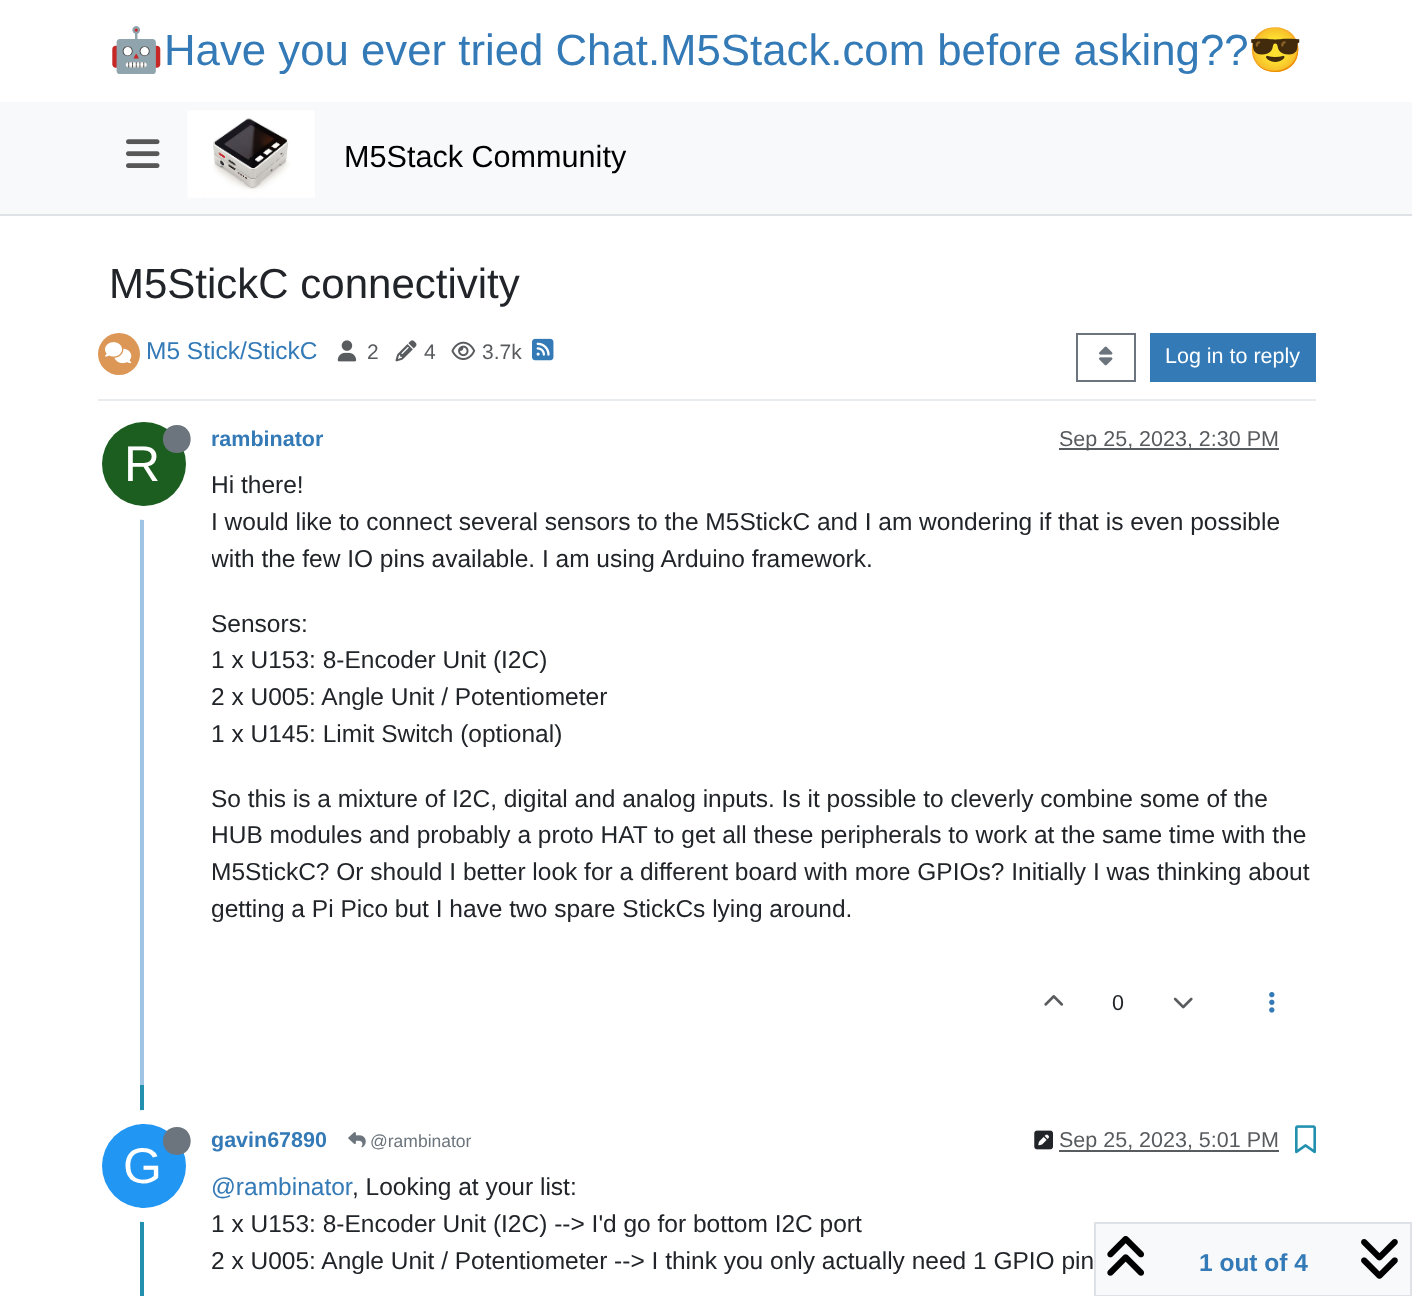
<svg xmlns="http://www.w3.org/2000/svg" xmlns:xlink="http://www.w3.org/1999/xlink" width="1412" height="1296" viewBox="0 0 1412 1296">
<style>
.cls-1{font:43.75px Noto Color Emoji;fill:#337ab7}
.cls-2{font:43.75px Liberation Sans;fill:#337ab7}
.cls-3{font:30.6px Liberation Sans;fill:#000000}
.cls-4{font:42px Liberation Sans;fill:#212529}
.cls-5{font:24.5px Liberation Sans;fill:#337ab7}
.cls-6{font:21px Liberation Sans;fill:#585b5e}
.cls-7{font:21.5px Liberation Sans;fill:#ffffff}
.cls-8{font:bold 21.5px Liberation Sans;fill:#337ab7}
.cls-9{font:21.5px Liberation Sans;fill:#585b5e}
.cls-10{font:50px Liberation Sans;fill:#ffffff}
.cls-11{font:24.5px Liberation Sans;fill:#212529}
.cls-12{font:21.5px Liberation Sans;fill:#212529}
.cls-13{font:17.5px Liberation Sans;fill:#6c757d}
.cls-14{font:bold 24.5px Liberation Sans;fill:#337ab7}
</style>
<defs>
<clipPath id="clip1"><rect x="212" y="467" width="1104" height="490"/></clipPath>
</defs>
<rect width="100%" height="100%" fill="#ffffff"/>
<rect fill="#f8f9fa" x="0" y="102" width="1412" height="112"/>
<rect fill="#dee2e6" x="0" y="214" width="1412" height="2"/>
<image xlink:href="image0.png" x="126" y="139" width="34" height="29"/>
<image xlink:href="image1.png" x="187" y="110" width="128" height="88"/>
<rect fill="#e9ecef" x="98" y="399" width="1218" height="2"/>
<circle fill="#dc9656" cx="119" cy="354" r="21"/>
<image xlink:href="image2.png" x="105" y="342" width="27" height="22"/>
<image xlink:href="image3.png" x="337" y="340" width="20" height="22"/>
<image xlink:href="image4.png" x="395" y="340" width="22" height="22"/>
<image xlink:href="image5.png" x="451" y="341" width="25" height="20"/>
<image xlink:href="image6.png" x="532" y="338" width="22" height="23"/>
<rect fill="none" stroke="#6c757d" stroke-width="2" x="1077" y="334" width="58" height="47"/>
<image xlink:href="image7.png" x="1099" y="346" width="14" height="20"/>
<rect fill="#337ab7" x="1150" y="333" width="166" height="49"/>
<rect fill="#a0c4e4" x="140" y="418" width="4" height="667"/>
<rect fill="#595c5f" x="1059" y="448" width="220" height="2"/>
<circle fill="none" stroke="#ffffff" stroke-width="14" cx="144" cy="464" r="49"/>
<circle fill="#1b5e20" cx="144" cy="464" r="42"/>
<path fill="#6c757d" d="M177 453C195.5 453 195 425 177 425C158.5 425 158 453 177 453Z"/>
<image xlink:href="image8.png" x="1044" y="995" width="20" height="11"/>
<image xlink:href="image9.png" x="1173" y="997" width="20" height="12"/>
<image xlink:href="image10.png" x="1269" y="992" width="6" height="21"/>
<rect fill="#2390b0" x="140" y="1085" width="4" height="211"/>
<image xlink:href="image11.png" x="348" y="1132" width="18" height="16"/>
<image xlink:href="image12.png" x="1034" y="1130" width="19" height="20"/>
<rect fill="#595c5f" x="1059" y="1150" width="220" height="2"/>
<image xlink:href="image13.png" x="1295" y="1125" width="21" height="29"/>
<circle fill="none" stroke="#ffffff" stroke-width="14" cx="144" cy="1166" r="49"/>
<circle fill="#2196f3" cx="144" cy="1166" r="42"/>
<path fill="#6c757d" d="M177 1155C195.5 1154.5 195 1127 177 1127C158.5 1127 158 1154.5 177 1155Z"/>
<rect fill="#f8f9fa" stroke="#dee2e6" stroke-width="2" x="1095" y="1223" width="316" height="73"/>
<image xlink:href="image14.png" x="1107" y="1236" width="37" height="40"/>
<image xlink:href="image15.png" x="1361" y="1239" width="37" height="40"/>
<text class="cls-1" x="109" y="65">🤖</text>
<text class="cls-2" x="164" y="65">Have you ever tried Chat.M5Stack.com before asking??</text>
<text class="cls-1" x="1248" y="65">😎</text>
<text class="cls-3" x="344" y="167">M5Stack Community</text>
<text class="cls-4" x="109" y="298">M5StickC connectivity</text>
<text class="cls-5" x="146" y="359">M5 Stick/StickC</text>
<text class="cls-6" x="367" y="359">2</text>
<text class="cls-6" x="424" y="359">4</text>
<text class="cls-6" x="482" y="359">3.7k</text>
<text class="cls-7" x="1165" y="363">Log in to reply</text>
<text class="cls-8" x="211" y="446">rambinator</text>
<text class="cls-9" x="1059" y="446">Sep 25, 2023, 2:30 PM</text>
<text class="cls-10" x="124" y="481">R</text>
<text class="cls-11"><tspan x="211" y="493">Hi there!</tspan><tspan x="211" y="530">I would like to connect several sensors to the M5StickC and I am wondering if that is even possible</tspan></text>
<g clip-path="url(#clip1)">
<text class="cls-11" x="211" y="567">with the few IO pins available. I am using Arduino framework.</text>
</g>
<text class="cls-11"><tspan x="211" y="632">Sensors:</tspan><tspan x="211" y="668">1 x U153: 8-Encoder Unit (I2C)</tspan><tspan x="211" y="705">2 x U005: Angle Unit / Potentiometer</tspan><tspan x="211" y="742">1 x U145: Limit Switch (optional)</tspan></text>
<text class="cls-11"><tspan x="211" y="807">So this is a mixture of I2C, digital and analog inputs. Is it possible to cleverly combine some of the</tspan><tspan x="211" y="843">HUB modules and probably a proto HAT to get all these peripherals to work at the same time with the</tspan><tspan x="211" y="880">M5StickC? Or should I better look for a different board with more GPIOs? Initially I was thinking about</tspan><tspan x="211" y="917">getting a Pi Pico but I have two spare StickCs lying around.</tspan></text>
<text class="cls-12" x="1112" y="1010">0</text>
<text class="cls-8" x="211" y="1147">gavin67890</text>
<text class="cls-13" x="370" y="1147">@rambinator</text>
<text class="cls-9" x="1059" y="1147">Sep 25, 2023, 5:01 PM</text>
<text class="cls-10" x="123" y="1183">G</text>
<text class="cls-5" x="211" y="1195">@rambinator</text>
<text class="cls-11" x="352" y="1195">, Looking at your list:</text>
<text class="cls-11"><tspan x="211" y="1232">1 x U153: 8-Encoder Unit (I2C) --&gt; I'd go for bottom I2C port</tspan><tspan x="211" y="1269">2 x U005: Angle Unit / Potentiometer --&gt; I think you only actually need 1 GPIO pin</tspan></text>
<text class="cls-14" x="1199" y="1271">1 out of 4</text>
</svg>
